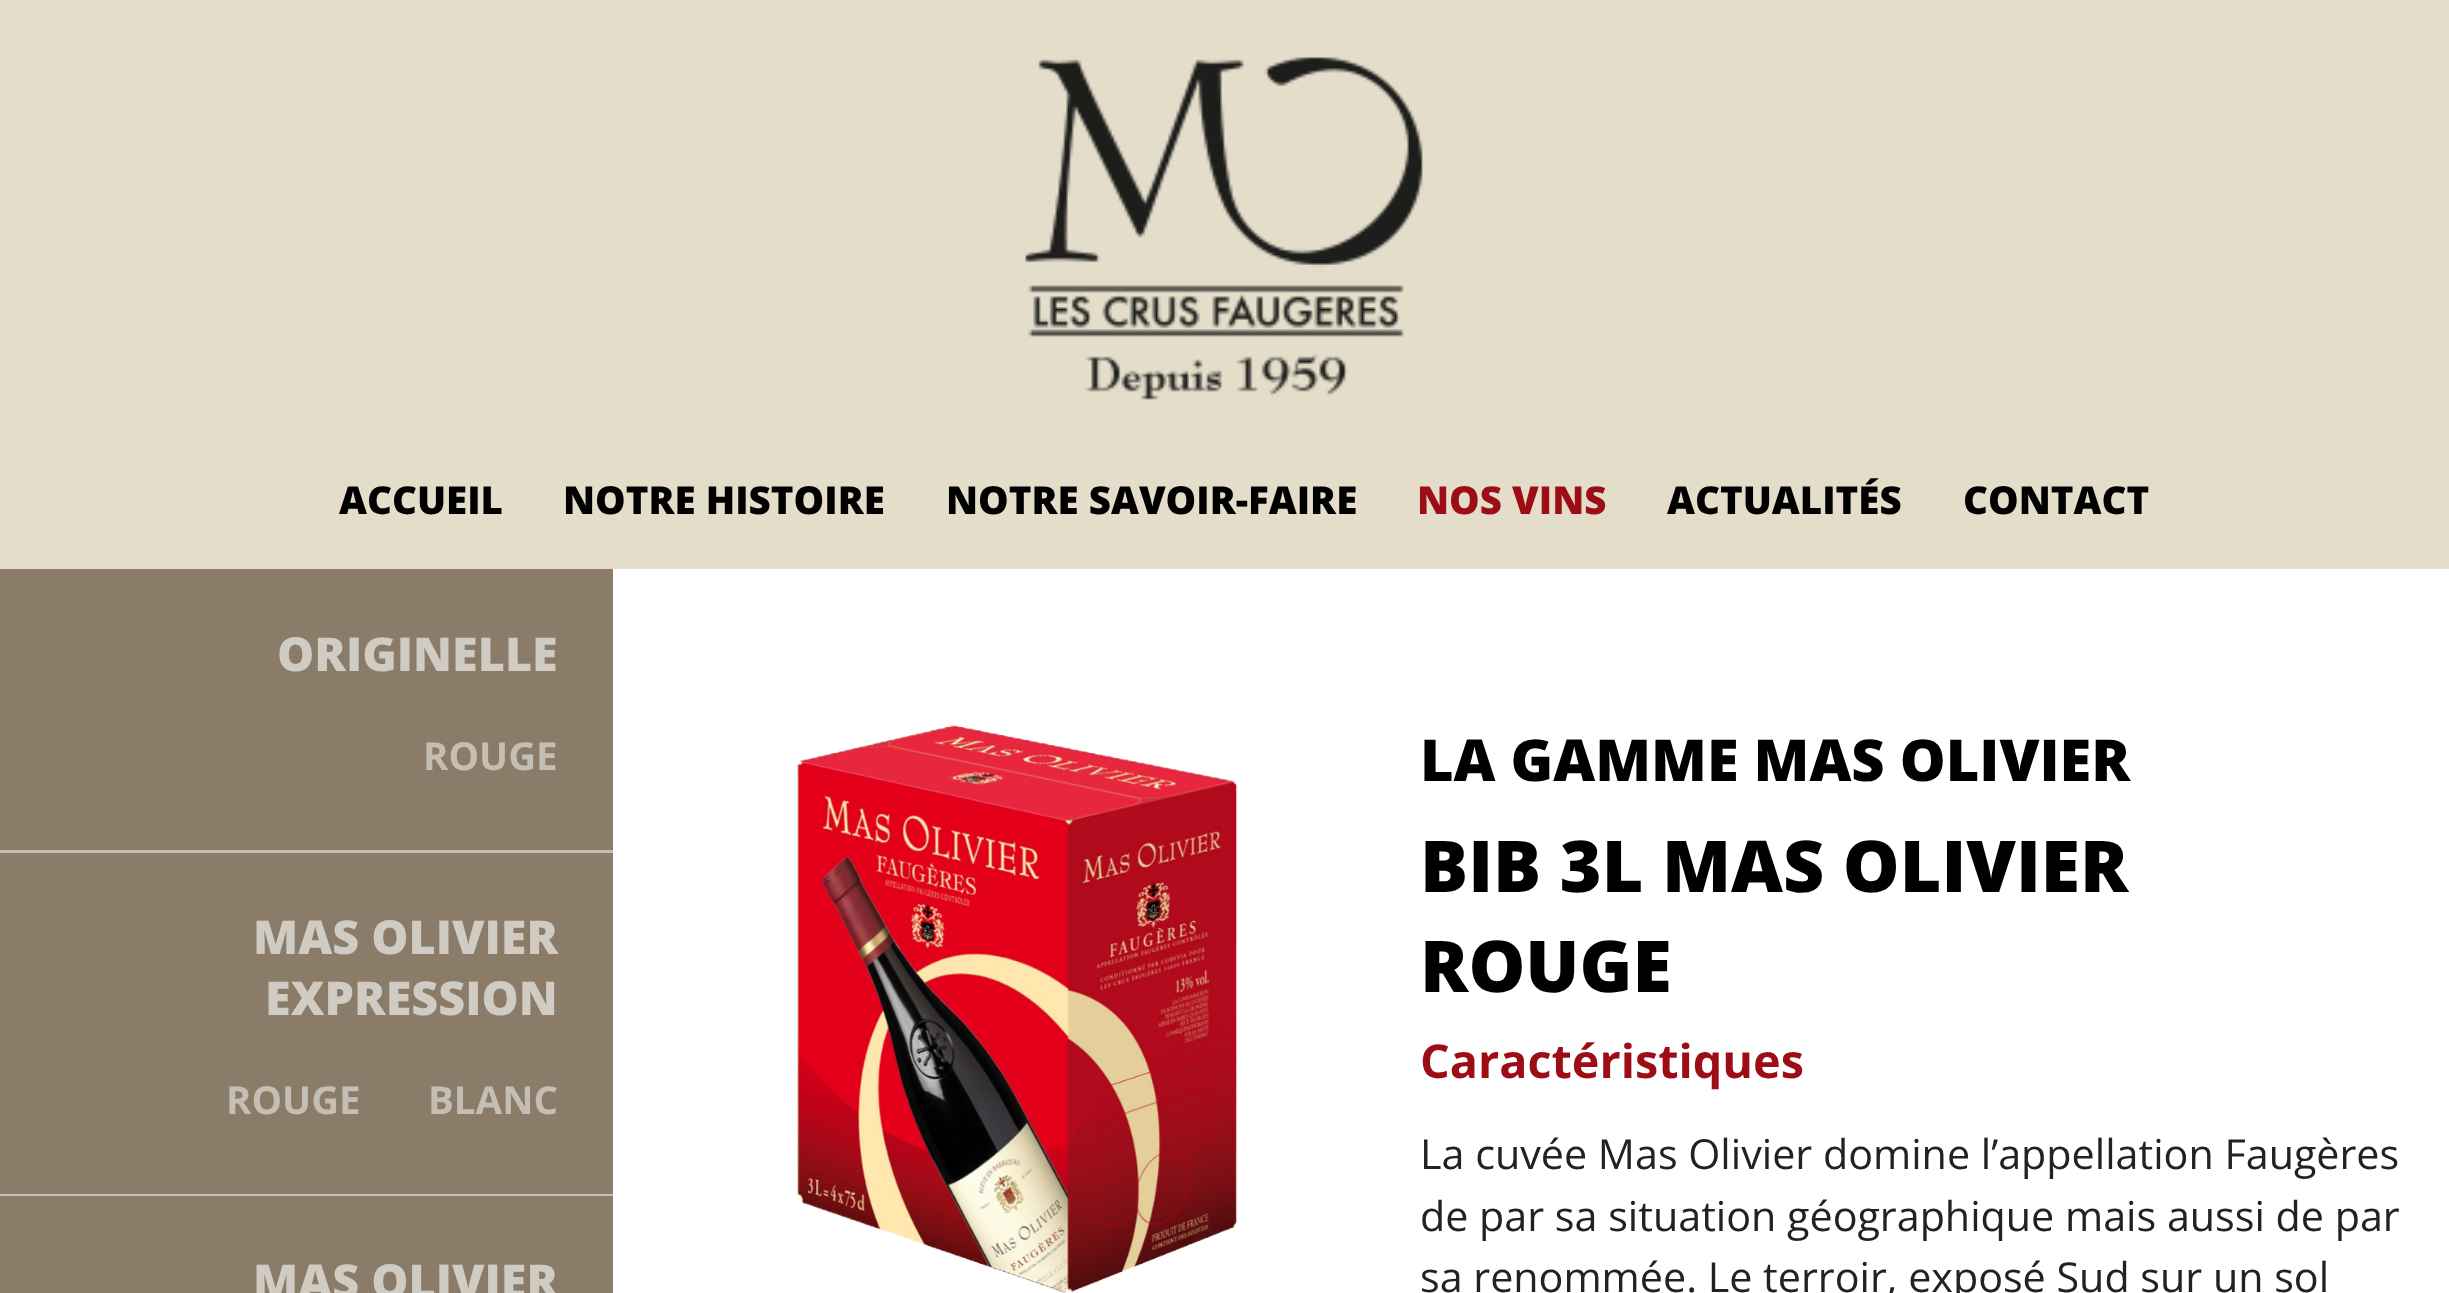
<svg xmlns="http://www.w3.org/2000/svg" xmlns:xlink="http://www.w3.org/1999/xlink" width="2449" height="1293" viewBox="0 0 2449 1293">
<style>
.cls-1{font:800 38.5px Open Sans;fill:#000000}
.cls-2{font:800 38.5px Open Sans;fill:#9d0d15}
.cls-3{font:800 46.75px Open Sans;fill:#d0cbc3}
.cls-4{font:bold 38.5px Open Sans;fill:#c5beb4}
.cls-5{font:800 57.75px Open Sans;fill:#000000}
.cls-6{font:800 71.5px Open Sans;fill:#000000}
.cls-7{font:bold 46.75px Open Sans;fill:#9d0d15}
.cls-8{font:41.25px Open Sans;fill:#222222}
</style>
<rect width="100%" height="100%" fill="#e3ddca"/>
<image xlink:href="image0.png" x="1025" y="57" width="398" height="343"/>
<rect fill="#8a7c68" x="0" y="569" width="613" height="281"/>
<rect fill="#c5beb4" x="0" y="850" width="613" height="3"/>
<rect fill="#8a7c68" x="0" y="853" width="613" height="341"/>
<rect fill="#c5beb4" x="0" y="1194" width="613" height="2"/>
<rect fill="#8a7c68" x="0" y="1196" width="613" height="97"/>
<rect fill="#ffffff" x="613" y="569" width="1836" height="724"/>
<image xlink:href="image1.png" x="797" y="725" width="440" height="568"/>
<text class="cls-1" x="339" y="514">ACCUEIL</text>
<text class="cls-1" x="563" y="514">NOTRE HISTOIRE</text>
<text class="cls-1" x="946" y="514">NOTRE SAVOIR-FAIRE</text>
<text class="cls-2" x="1417" y="514">NOS VINS</text>
<text class="cls-1" x="1667" y="514">ACTUALITÉS</text>
<text class="cls-1" x="1963" y="514">CONTACT</text>
<text class="cls-3" x="277" y="671">ORIGINELLE</text>
<text class="cls-4" x="423" y="770">ROUGE</text>
<text class="cls-3" x="253" y="954">MAS OLIVIER</text>
<text class="cls-3" x="265" y="1015">EXPRESSION</text>
<text class="cls-4" x="226" y="1114">ROUGE</text>
<text class="cls-4" x="428" y="1114">BLANC</text>
<text class="cls-3" x="253" y="1298">MAS OLIVIER</text>
<text class="cls-5" x="1420" y="781">LA GAMME MAS OLIVIER</text>
<text class="cls-6"><tspan x="1420" y="892">BIB 3L MAS OLIVIER</tspan><tspan x="1420" y="992">ROUGE</tspan></text>
<text class="cls-7" x="1420" y="1078">Caractéristiques</text>
<text class="cls-8"><tspan x="1420" y="1169">La cuvée Mas Olivier domine l’appellation Faugères</tspan><tspan x="1420" y="1231">de par sa situation géographique mais aussi de par</tspan><tspan x="1420" y="1292">sa renommée. Le terroir, exposé Sud sur un sol</tspan></text>
</svg>
